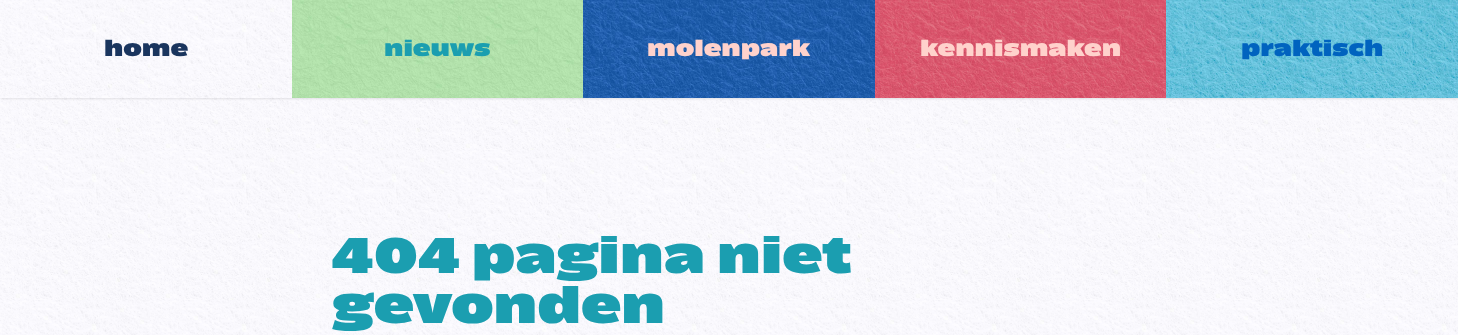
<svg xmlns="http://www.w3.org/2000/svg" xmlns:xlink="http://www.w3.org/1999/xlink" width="1458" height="335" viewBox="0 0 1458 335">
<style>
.cls-1{font:900 22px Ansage;fill:#1a355e}
.cls-2{font:900 22px Ansage;fill:#1b9eb0}
.cls-3{font:900 22px Ansage;fill:#ffd2cc}
.cls-4{font:900 22px Ansage;fill:#0063bf}
.cls-5{font:900 50px Ansage;fill:#1b9eb0}
</style>
<rect width="100%" height="100%" fill="#ffffff"/>
<image xlink:href="image5.png" x="0" y="98" width="1458" height="237"/>
<rect fill="#000000" fill-opacity="0.1" filter="blur(1px)" x="1" y="1" width="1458" height="98"/>
<image xlink:href="image0.png" x="0" y="0" width="292" height="98"/>
<image xlink:href="image1.png" x="292" y="0" width="291" height="98"/>
<image xlink:href="image2.png" x="583" y="0" width="292" height="98"/>
<image xlink:href="image3.png" x="875" y="0" width="291" height="98"/>
<image xlink:href="image4.png" x="1166" y="0" width="292" height="98"/>
<text class="cls-1" x="104" y="56">home</text>
<text class="cls-2" x="384" y="56">nieuws</text>
<text class="cls-3" x="647" y="56">molenpark</text>
<text class="cls-3" x="920" y="56">kennismaken</text>
<text class="cls-4" x="1241" y="56">praktisch</text>
<text class="cls-5"><tspan x="332" y="273">404 pagina niet</tspan><tspan x="332" y="323">gevonden</tspan></text>
</svg>
